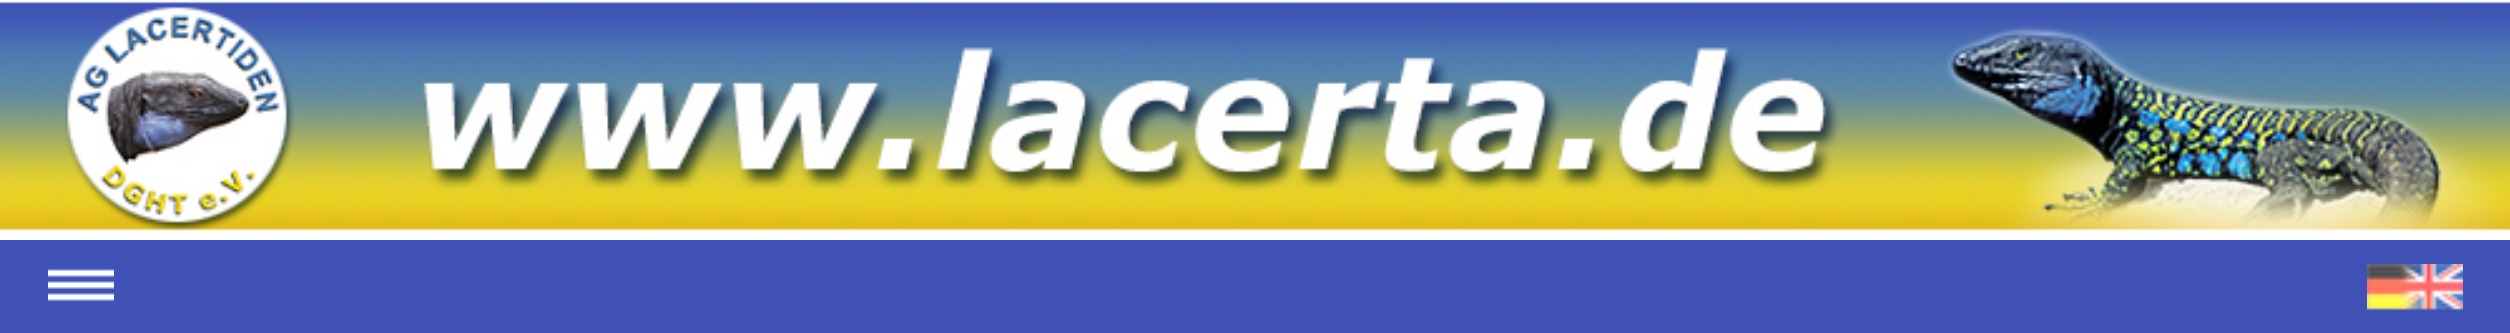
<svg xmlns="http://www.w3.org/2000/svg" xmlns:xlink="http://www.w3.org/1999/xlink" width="2510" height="333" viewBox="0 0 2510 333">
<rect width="100%" height="100%" fill="#ffffff"/>
<image xlink:href="image0.png" x="0" y="0" width="2510" height="237"/>
<rect fill="#3f51b5" x="0" y="240" width="2510" height="93"/>
<image xlink:href="image1.png" x="48" y="269" width="66" height="32"/>
<image xlink:href="image2.png" x="2367" y="264" width="96" height="46"/>
</svg>
